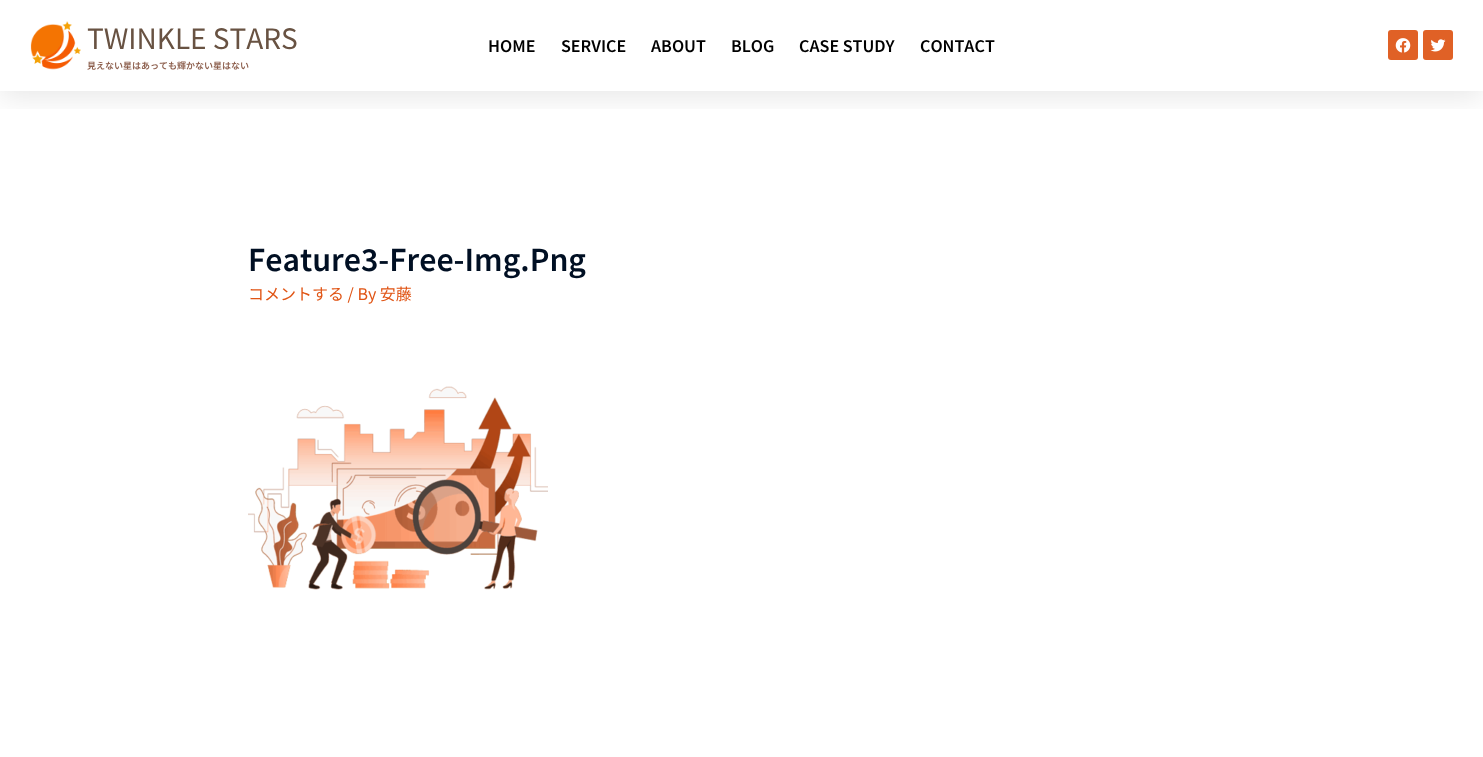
<svg xmlns="http://www.w3.org/2000/svg" xmlns:xlink="http://www.w3.org/1999/xlink" width="1483" height="757" viewBox="0 0 1483 757">
<style>*{font-kerning:none!important;font-variant-ligatures:none!important}</style>
<style>
.cls-1{font:28px Noto Sans JP;fill:#685242}
.cls-2{font:600 9px Noto Sans JP;fill:#8c5e4c}
.cls-3{font:600 16px Noto Sans JP;fill:#000000}
.cls-4{font:600 30px Noto Sans JP;fill:#000f23}
.cls-5{font:16px Noto Sans JP;fill:#e05414}
</style>
<defs>
<clipPath id="clip1"><rect x="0" y="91" width="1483" height="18"/></clipPath>
</defs>
<rect width="100%" height="100%" fill="#ffffff"/>
<g clip-path="url(#clip1)">
<rect fill="#000000" fill-opacity="0.1" filter="blur(15px)" x="0" y="5" width="1483" height="91"/>
</g>
<image xlink:href="image0.png" x="30" y="21" width="51" height="49"/>
<rect fill="#e06126" x="1388" y="30" width="30" height="30" rx="3"/>
<image xlink:href="image1.png" x="1395" y="38" width="16" height="15"/>
<rect fill="#e06126" x="1423" y="30" width="30" height="30" rx="3"/>
<image xlink:href="image2.png" x="1430" y="39" width="16" height="13"/>
<image xlink:href="image3.png" x="248" y="386" width="300" height="204"/>
<text class="cls-1" x="87" y="49">TWINKLE STARS</text>
<text class="cls-2" x="87" y="69">見えない星はあっても輝かない星はない</text>
<text class="cls-3" x="488" y="52">HOME</text>
<text class="cls-3" x="561" y="52">SERVICE</text>
<text class="cls-3" x="651" y="52">ABOUT</text>
<text class="cls-3" x="731" y="52">BLOG</text>
<text class="cls-3" x="799" y="52">CASE STUDY</text>
<text class="cls-3" x="920" y="52">CONTACT</text>
<text class="cls-4" x="248" y="271">Feature3-Free-Img.Png</text>
<text class="cls-5" x="248" y="300">コメントする / By 安藤</text>
</svg>
